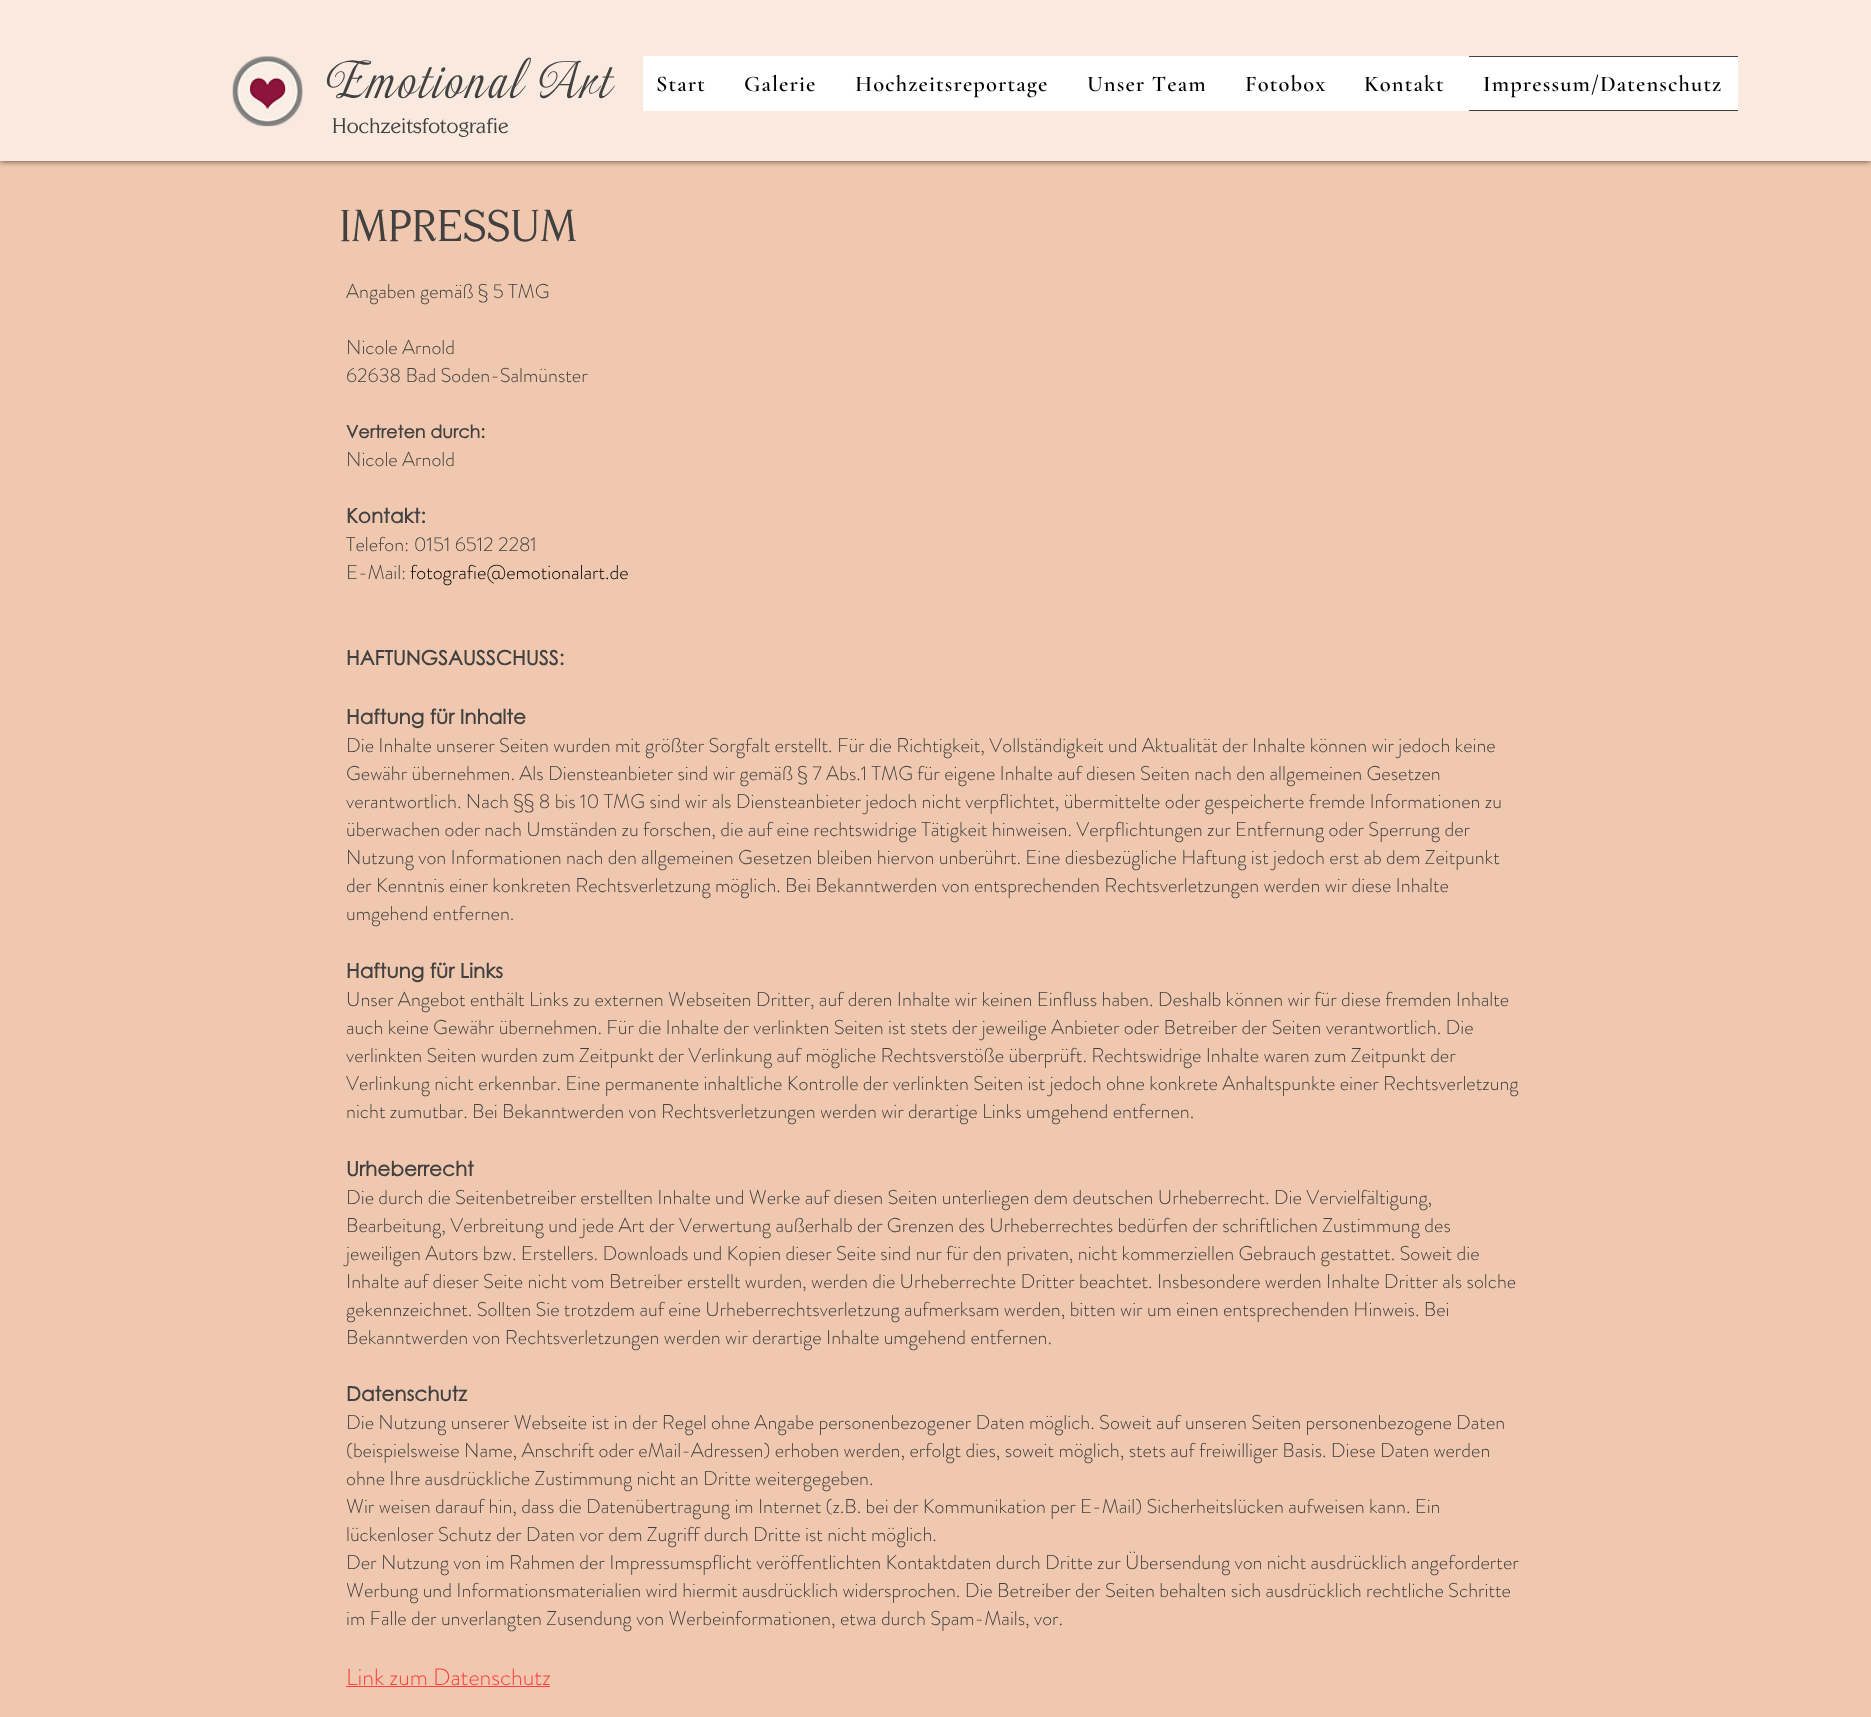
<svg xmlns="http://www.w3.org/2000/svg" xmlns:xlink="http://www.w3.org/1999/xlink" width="1871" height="1717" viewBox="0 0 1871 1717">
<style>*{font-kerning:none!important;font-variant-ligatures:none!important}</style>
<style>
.cls-1{font:42.5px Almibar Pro;letter-spacing:2.1px;fill:#414141}
.cls-2{font:600 22.5px Cormorant Garamond;letter-spacing:1.1px;fill:#000000}
.cls-3{font:21.25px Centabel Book;fill:#414141}
.cls-4{font:45px Centabel Book;fill:#414141}
.cls-5{font:300 20px 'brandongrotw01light';fill:#414141}
.cls-6{font:bold 17.5px Century Gothic;fill:#414141}
.cls-7{font:bold 20px Century Gothic;fill:#414141}
.cls-8{font:300 20px 'brandongrotw01light';fill:#000000}
.cls-9{font:300 23.75px 'brandongrotw01light';fill:#ff4040}
</style>
<rect width="100%" height="100%" fill="#f0c8af"/>
<rect fill="#000000" fill-opacity="0.7" filter="blur(3px)" x="0" y="0" width="1871" height="161"/>
<rect fill="#f9e9df" x="0" y="0" width="1871" height="161"/>
<image xlink:href="image0.png" x="232" y="56" width="71" height="71"/>
<rect fill="#ffffff" x="643" y="56" width="1095" height="55"/>
<rect fill="#414141" x="1469" y="56" width="269" height="1"/>
<rect fill="#414141" x="1469" y="110" width="269" height="1"/>
<rect fill="#ff4040" x="346" y="1686" width="204" height="1"/>
<text class="cls-1" x="326" y="98">Emotional Art</text>
<text class="cls-2" x="656" y="91">Start</text>
<text class="cls-2" x="744" y="91">Galerie</text>
<text class="cls-2" x="855" y="91">Hochzeitsreportage</text>
<text class="cls-2" x="1087" y="91">Unser Team</text>
<text class="cls-2" x="1245" y="91">Fotobox</text>
<text class="cls-2" x="1364" y="91">Kontakt</text>
<text class="cls-2" x="1483" y="91">Impressum/Datenschutz</text>
<text class="cls-3" x="332" y="133">Hochzeitsfotografie</text>
<text class="cls-4" x="339" y="241">IMPRESSUM</text>
<text class="cls-5" x="346" y="298">Angaben gemäß § 5 TMG</text>
<text class="cls-5"><tspan x="346" y="354">Nicole Arnold</tspan><tspan x="346" y="382">62638 Bad Soden-Salmünster</tspan></text>
<text class="cls-6" x="346" y="438">Vertreten durch:</text>
<text class="cls-5" x="346" y="466">Nicole Arnold</text>
<text class="cls-7" x="346" y="523">Kontakt:</text>
<text class="cls-5"><tspan x="346" y="551">Telefon: 0151 6512 2281</tspan><tspan x="346" y="579">E-Mail:</tspan></text>
<text class="cls-8" x="410" y="579">fotografie@emotionalart.de</text>
<text class="cls-7" x="346" y="665">HAFTUNGSAUSSCHUSS:</text>
<text class="cls-7" x="346" y="724">Haftung für Inhalte</text>
<text class="cls-5"><tspan x="346" y="752">Die Inhalte unserer Seiten wurden mit größter Sorgfalt erstellt. Für die Richtigkeit, Vollständigkeit und Aktualität der Inhalte können wir jedoch keine</tspan><tspan x="346" y="780">Gewähr übernehmen. Als Diensteanbieter sind wir gemäß § 7 Abs.1 TMG für eigene Inhalte auf diesen Seiten nach den allgemeinen Gesetzen</tspan><tspan x="346" y="808">verantwortlich. Nach §§ 8 bis 10 TMG sind wir als Diensteanbieter jedoch nicht verpflichtet, übermittelte oder gespeicherte fremde Informationen zu</tspan><tspan x="346" y="836">überwachen oder nach Umständen zu forschen, die auf eine rechtswidrige Tätigkeit hinweisen. Verpflichtungen zur Entfernung oder Sperrung der</tspan><tspan x="346" y="864">Nutzung von Informationen nach den allgemeinen Gesetzen bleiben hiervon unberührt. Eine diesbezügliche Haftung ist jedoch erst ab dem Zeitpunkt</tspan><tspan x="346" y="892">der Kenntnis einer konkreten Rechtsverletzung möglich. Bei Bekanntwerden von entsprechenden Rechtsverletzungen werden wir diese Inhalte</tspan><tspan x="346" y="920">umgehend entfernen.</tspan></text>
<text class="cls-7" x="346" y="978">Haftung für Links</text>
<text class="cls-5"><tspan x="346" y="1006">Unser Angebot enthält Links zu externen Webseiten Dritter, auf deren Inhalte wir keinen Einfluss haben. Deshalb können wir für diese fremden Inhalte</tspan><tspan x="346" y="1034">auch keine Gewähr übernehmen. Für die Inhalte der verlinkten Seiten ist stets der jeweilige Anbieter oder Betreiber der Seiten verantwortlich. Die</tspan><tspan x="346" y="1062">verlinkten Seiten wurden zum Zeitpunkt der Verlinkung auf mögliche Rechtsverstöße überprüft. Rechtswidrige Inhalte waren zum Zeitpunkt der</tspan><tspan x="346" y="1090">Verlinkung nicht erkennbar. Eine permanente inhaltliche Kontrolle der verlinkten Seiten ist jedoch ohne konkrete Anhaltspunkte einer Rechtsverletzung</tspan><tspan x="346" y="1118">nicht zumutbar. Bei Bekanntwerden von Rechtsverletzungen werden wir derartige Links umgehend entfernen.</tspan></text>
<text class="cls-7" x="346" y="1176">Urheberrecht</text>
<text class="cls-5"><tspan x="346" y="1204">Die durch die Seitenbetreiber erstellten Inhalte und Werke auf diesen Seiten unterliegen dem deutschen Urheberrecht. Die Vervielfältigung,</tspan><tspan x="346" y="1232">Bearbeitung, Verbreitung und jede Art der Verwertung außerhalb der Grenzen des Urheberrechtes bedürfen der schriftlichen Zustimmung des</tspan><tspan x="346" y="1260">jeweiligen Autors bzw. Erstellers. Downloads und Kopien dieser Seite sind nur für den privaten, nicht kommerziellen Gebrauch gestattet. Soweit die</tspan><tspan x="346" y="1288">Inhalte auf dieser Seite nicht vom Betreiber erstellt wurden, werden die Urheberrechte Dritter beachtet. Insbesondere werden Inhalte Dritter als solche</tspan><tspan x="346" y="1316">gekennzeichnet. Sollten Sie trotzdem auf eine Urheberrechtsverletzung aufmerksam werden, bitten wir um einen entsprechenden Hinweis. Bei</tspan><tspan x="346" y="1344">Bekanntwerden von Rechtsverletzungen werden wir derartige Inhalte umgehend entfernen.</tspan></text>
<text class="cls-7" x="346" y="1401">Datenschutz</text>
<text class="cls-5"><tspan x="346" y="1429">Die Nutzung unserer Webseite ist in der Regel ohne Angabe personenbezogener Daten möglich. Soweit auf unseren Seiten personenbezogene Daten</tspan><tspan x="346" y="1457">(beispielsweise Name, Anschrift oder eMail-Adressen) erhoben werden, erfolgt dies, soweit möglich, stets auf freiwilliger Basis. Diese Daten werden</tspan><tspan x="346" y="1485">ohne Ihre ausdrückliche Zustimmung nicht an Dritte weitergegeben.</tspan><tspan x="346" y="1513">Wir weisen darauf hin, dass die Datenübertragung im Internet (z.B. bei der Kommunikation per E-Mail) Sicherheitslücken aufweisen kann. Ein</tspan><tspan x="346" y="1541">lückenloser Schutz der Daten vor dem Zugriff durch Dritte ist nicht möglich.</tspan><tspan x="346" y="1569">Der Nutzung von im Rahmen der Impressumspflicht veröffentlichten Kontaktdaten durch Dritte zur Übersendung von nicht ausdrücklich angeforderter</tspan><tspan x="346" y="1597">Werbung und Informationsmaterialien wird hiermit ausdrücklich widersprochen. Die Betreiber der Seiten behalten sich ausdrücklich rechtliche Schritte</tspan><tspan x="346" y="1625">im Falle der unverlangten Zusendung von Werbeinformationen, etwa durch Spam-Mails, vor.</tspan></text>
<text class="cls-9" x="346" y="1685">Link zum Datenschutz</text>
</svg>
